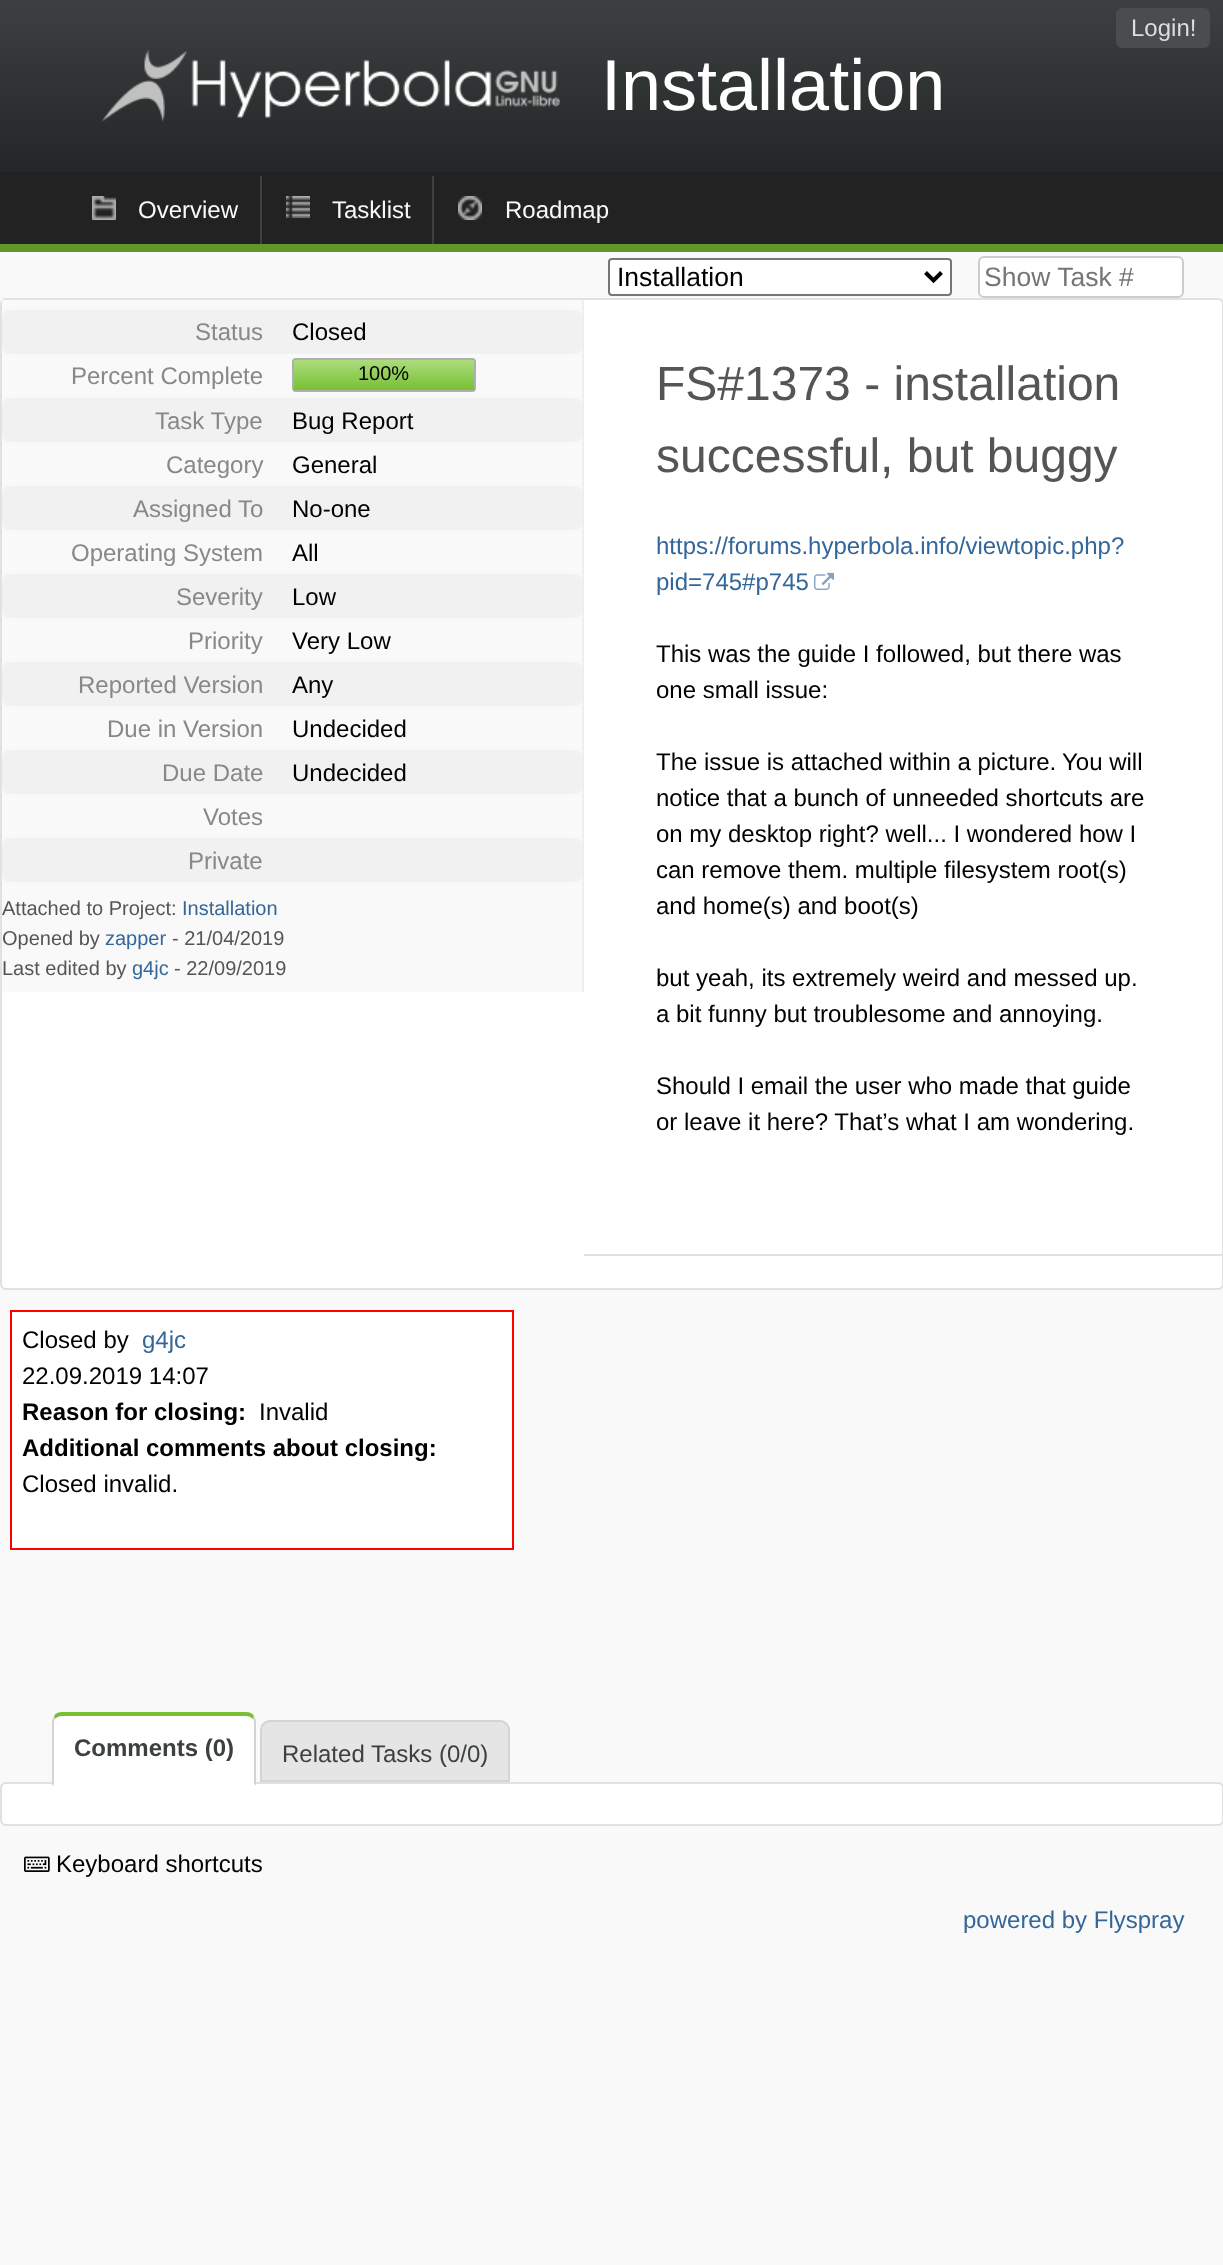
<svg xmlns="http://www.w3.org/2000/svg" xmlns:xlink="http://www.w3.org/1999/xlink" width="1223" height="2265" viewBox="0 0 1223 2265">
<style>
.cls-1{font:24px Liberation Sans;fill:#dddddd}
.cls-2{font:72px Liberation Sans;fill:#ffffff}
.cls-3{font:24px Liberation Sans;fill:#f9f9f9}
.cls-4{font:26.5px Liberation Sans;fill:#000000}
.cls-5{font:26.5px Liberation Sans;fill:#757575}
.cls-6{font:24px Liberation Sans;fill:#888888}
.cls-7{font:24px Liberation Sans;fill:#000000}
.cls-8{font:20px Liberation Sans;fill:#000000}
.cls-9{font:20px Liberation Sans;fill:#555555}
.cls-10{font:20px Liberation Sans;fill:#336699}
.cls-11{font:48px Liberation Sans;fill:#555555}
.cls-12{font:24px Liberation Sans;fill:#336699}
.cls-13{font:bold 24px Liberation Sans;fill:#000000}
.cls-14{font:bold 24px Liberation Sans;fill:#3c4041}
.cls-15{font:24px Liberation Sans;fill:#3c4041}
</style>
<defs>
<linearGradient id="g1" gradientUnits="userSpaceOnUse" x1="612" y1="0" x2="612" y2="172"><stop offset="0" stop-color="#3c4041"/><stop offset="1" stop-color="#242627"/></linearGradient>
<linearGradient id="g2" gradientUnits="userSpaceOnUse" x1="384" y1="360" x2="384" y2="390"><stop offset="0" stop-color="#acdc7d"/><stop offset="1" stop-color="#78bf34"/></linearGradient>
</defs>
<rect width="100%" height="100%" fill="#f9f9f9"/>
<rect fill="url(#g1)" x="0" y="0" width="1223" height="172"/>
<rect fill="#494d4e" x="1116" y="8" width="94" height="40" rx="6"/>
<image xlink:href="image0.png" x="102" y="50" width="458" height="72"/>
<rect fill="#222222" x="0" y="172" width="1223" height="72"/>
<rect fill="#5f9729" x="0" y="244" width="1223" height="8"/>
<image xlink:href="image1.png" x="92" y="196" width="24" height="24"/>
<image xlink:href="image2.png" x="286" y="196" width="24" height="22"/>
<rect fill="#3c4041" x="260" y="176" width="2" height="68"/>
<image xlink:href="image3.png" x="458" y="196" width="24" height="24"/>
<rect fill="#3c4041" x="432" y="176" width="2" height="68"/>
<rect fill="#ffffff" stroke="#767676" stroke-width="2" x="609" y="259" width="342" height="36" rx="3"/>
<path fill="none" stroke="#000000" stroke-width="4" d="M925.5 272.5L933.5 280.5L941.5 272.5"/>
<rect fill="#ffffff" stroke="#cccccc" stroke-width="2" x="979" y="257" width="204" height="40" rx="5"/>
<rect fill="#ffffff" stroke="#e1e1e1" stroke-width="2" x="1" y="299" width="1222" height="990" rx="5"/>
<rect fill="#f9f9f9" x="2" y="300" width="580" height="692"/>
<rect fill="#eeeeee" x="582" y="300" width="2" height="692"/>
<rect fill="#f1f1f1" x="2" y="310" width="580" height="44" rx="8"/>
<rect fill="none" stroke="#aeaeae" stroke-width="2" x="293" y="359" width="182" height="32" rx="3"/>
<rect fill="url(#g2)" x="294" y="360" width="180" height="30"/>
<rect fill="#f1f1f1" x="2" y="398" width="580" height="44" rx="8"/>
<rect fill="#f1f1f1" x="2" y="486" width="580" height="44" rx="8"/>
<rect fill="#f1f1f1" x="2" y="574" width="580" height="44" rx="8"/>
<rect fill="#f1f1f1" x="2" y="662" width="580" height="44" rx="8"/>
<rect fill="#f1f1f1" x="2" y="750" width="580" height="44" rx="8"/>
<rect fill="#f1f1f1" x="2" y="838" width="580" height="44" rx="8"/>
<image xlink:href="image4.png" x="814" y="572" width="20" height="18"/>
<rect fill="#e1e1e1" x="584" y="1254" width="638" height="2"/>
<rect fill="#ffffff" stroke="#ff0000" stroke-width="2" x="11" y="1311" width="502" height="238"/>
<rect fill="#ffffff" stroke="#e1e1e1" stroke-width="2" x="1" y="1783" width="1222" height="42" rx="5"/>
<path fill="#ffffff" d="M62 1716H246C250 1716 254 1719 254 1722V1784H54V1722C54 1719 58 1716 62 1716Z"/>
<path fill="#78bf34" d="M62 1712C58 1712 56 1713 54 1716L55 1719C57 1717 59 1716 62 1716H246C249 1716 251 1717 253 1719L254 1716C252 1713 250 1712 246 1712Z"/>
<path fill="#d4d4d4" d="M256 1786V1722C256 1720 255 1717 254 1716L253 1719L254 1722V1784Z"/>
<path fill="#ffffff" d="M256 1786L254 1784H54L52 1786Z"/>
<path fill="#d4d4d4" d="M52 1786L54 1784V1722L55 1719L54 1716C53 1717 52 1720 52 1722Z"/>
<path fill="#e5e5e5" stroke="#d4d4d4" stroke-width="2" d="M270 1721H500C505 1721 509 1725 509 1730V1781H261V1730C261 1725 265 1721 270 1721Z"/>
<image xlink:href="image5.png" x="24" y="1856" width="26" height="16"/>
<text class="cls-1" x="1131" y="36">Login!</text>
<text class="cls-2" x="601" y="110">Installation</text>
<text class="cls-3" x="138" y="218">Overview</text>
<text class="cls-3" x="332" y="218">Tasklist</text>
<text class="cls-3" x="505" y="218">Roadmap</text>
<text class="cls-4" x="617" y="286">Installation</text>
<text class="cls-5" x="984" y="286">Show Task #</text>
<text class="cls-6" x="195" y="340">Status</text>
<text class="cls-7" x="292" y="340">Closed</text>
<text class="cls-6" x="71" y="384">Percent Complete</text>
<text class="cls-8" x="358" y="380">100%</text>
<text class="cls-6" x="155" y="429">Task Type</text>
<text class="cls-7" x="292" y="429">Bug Report</text>
<text class="cls-6" x="166" y="473">Category</text>
<text class="cls-7" x="292" y="473">General</text>
<text class="cls-6" x="133" y="517">Assigned To</text>
<text class="cls-7" x="292" y="517">No-one</text>
<text class="cls-6" x="71" y="561">Operating System</text>
<text class="cls-7" x="292" y="561">All</text>
<text class="cls-6" x="176" y="605">Severity</text>
<text class="cls-7" x="292" y="605">Low</text>
<text class="cls-6" x="188" y="649">Priority</text>
<text class="cls-7" x="292" y="649">Very Low</text>
<text class="cls-6" x="78" y="693">Reported Version</text>
<text class="cls-7" x="292" y="693">Any</text>
<text class="cls-6" x="107" y="737">Due in Version</text>
<text class="cls-7" x="292" y="737">Undecided</text>
<text class="cls-6" x="162" y="781">Due Date</text>
<text class="cls-7" x="292" y="781">Undecided</text>
<text class="cls-6" x="203" y="825">Votes</text>
<text class="cls-6" x="188" y="869">Private</text>
<text class="cls-9" x="2" y="915">Attached to Project:</text>
<text class="cls-10" x="182" y="915">Installation</text>
<text class="cls-9" x="2" y="945">Opened by</text>
<text class="cls-10" x="105" y="945">zapper</text>
<text class="cls-9" x="172" y="945">- 21/04/2019</text>
<text class="cls-9" x="2" y="975">Last edited by</text>
<text class="cls-10" x="132" y="975">g4jc</text>
<text class="cls-9" x="174" y="975">- 22/09/2019</text>
<text class="cls-11"><tspan x="656" y="400">FS#1373 - installation</tspan><tspan x="656" y="472">successful, but buggy</tspan></text>
<text class="cls-12"><tspan x="656" y="554">https://forums.hyperbola.info/viewtopic.php?</tspan><tspan x="656" y="590">pid=745#p745</tspan></text>
<text class="cls-7"><tspan x="656" y="662">This was the guide I followed, but there was</tspan><tspan x="656" y="698">one small issue:</tspan></text>
<text class="cls-7" x="656" y="770">The issue is attached within a picture.</text>
<text class="cls-7" x="1062" y="770">You will</text>
<text class="cls-7"><tspan x="656" y="806">notice that a bunch of unneeded shortcuts are</tspan><tspan x="656" y="842">on my desktop right? well... I wondered how I</tspan><tspan x="656" y="878">can remove them. multiple filesystem root(s)</tspan><tspan x="656" y="914">and home(s) and boot(s)</tspan></text>
<text class="cls-7"><tspan x="656" y="986">but yeah, its extremely weird and messed up.</tspan><tspan x="656" y="1022">a bit funny but troublesome and annoying.</tspan></text>
<text class="cls-7"><tspan x="656" y="1094">Should I email the user who made that guide</tspan><tspan x="656" y="1130">or leave it here? That’s what I am wondering.</tspan></text>
<text class="cls-7" x="22" y="1348">Closed by</text>
<text class="cls-12" x="142" y="1348">g4jc</text>
<text class="cls-7" x="22" y="1384">22.09.2019 14:07</text>
<text class="cls-13" x="22" y="1420">Reason for closing:</text>
<text class="cls-7" x="259" y="1420">Invalid</text>
<text class="cls-13" x="22" y="1456">Additional comments about closing:</text>
<text class="cls-7" x="22" y="1492">Closed invalid.</text>
<text class="cls-14" x="74" y="1756">Comments (0)</text>
<text class="cls-15" x="282" y="1762">Related Tasks (0/0)</text>
<text class="cls-7" x="56" y="1872">Keyboard shortcuts</text>
<text class="cls-12" x="963" y="1928">powered by Flyspray</text>
</svg>
